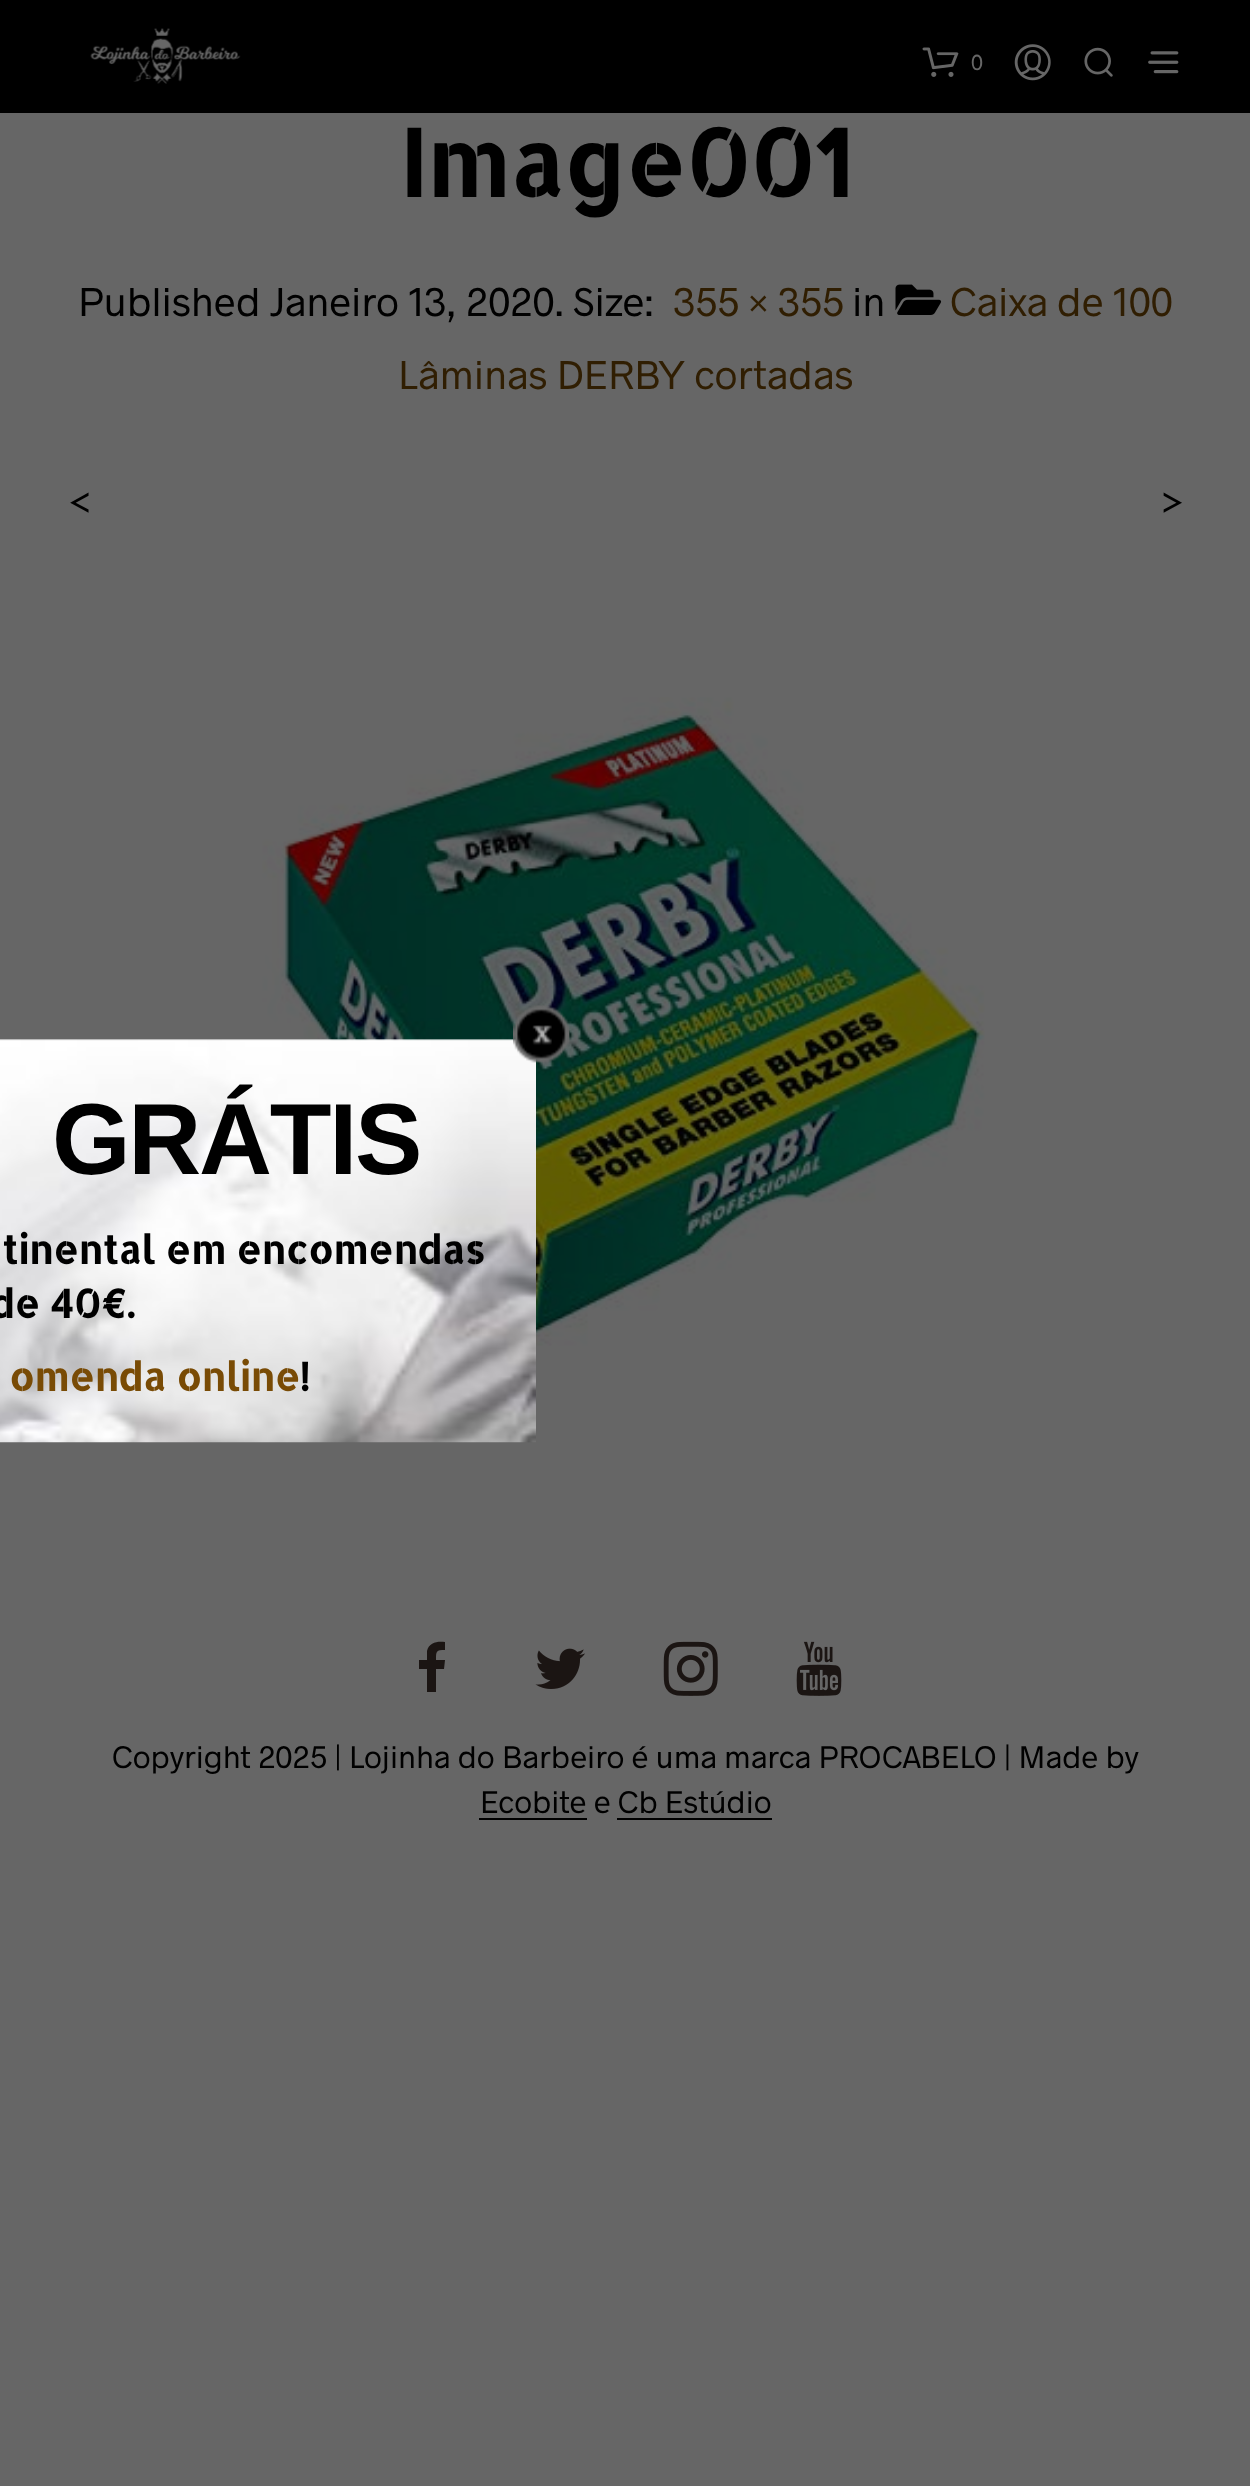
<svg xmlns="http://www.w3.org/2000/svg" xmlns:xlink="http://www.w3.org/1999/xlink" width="1250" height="2486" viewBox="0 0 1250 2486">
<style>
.cls-1{font:22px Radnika;fill:#666666}
.cls-2{font:bold 92.5px Allerta Stencil;fill:#000000}
.cls-3{font:40.5px Radnika;fill:#000000}
.cls-4{font:40.5px Radnika;fill:#301e02}
.cls-5{font:31.5px Radnika;fill:#000000}
.cls-6{font:bold 101px Liberation Sans;letter-spacing:-2.25px;fill:#000000}
.cls-7{font:bold 39px Allerta Stencil;fill:#000000}
.cls-8{font:bold 39px Allerta Stencil;fill:#794b05}
</style>
<rect width="100%" height="100%" fill="#666666"/>
<rect fill="#000000" x="0" y="0" width="1250" height="113"/>
<image xlink:href="image0.png" x="90" y="28" width="151" height="56"/>
<image xlink:href="image1.png" x="922" y="47" width="37" height="30"/>
<image xlink:href="image2.png" x="1014" y="44" width="37" height="37"/>
<image xlink:href="image3.png" x="1084" y="47" width="29" height="30"/>
<image xlink:href="image4.png" x="1148" y="51" width="31" height="23"/>
<image xlink:href="image5.png" x="895" y="284" width="47" height="31"/>
<image xlink:href="image6.png" x="262" y="697" width="723" height="649"/>
<path fill="#1b1513" d="M445 1642V1650C436 1650 436 1651 436 1660H445L444 1669H436V1692H427V1669H419V1660H427V1651C429 1642 438 1641 445 1642Z"/>
<image xlink:href="image7.png" x="535" y="1648" width="50" height="41"/>
<image xlink:href="image8.png" x="663" y="1641" width="55" height="55"/>
<image xlink:href="image9.png" x="796" y="1641" width="46" height="55"/>
<rect fill="#000000" x="479" y="1818" width="108" height="2"/>
<rect fill="#000000" x="617" y="1818" width="155" height="2"/>
<image xlink:href="image11.png" x="0" y="1039" width="536" height="404"/>
<image xlink:href="image10.png" x="513" y="1005" width="57" height="58"/>
<text class="cls-1" x="971" y="70">0</text>
<text class="cls-2" x="399" y="197">Image001</text>
<text class="cls-3" x="78" y="316">Published Janeiro 13, 2020. Size:</text>
<text class="cls-4" x="673" y="316">355 × 355</text>
<text class="cls-3" x="852" y="316">in</text>
<text class="cls-4" x="950" y="316">Caixa de 100</text>
<text class="cls-4" x="398" y="389">Lâminas DERBY cortadas</text>
<text class="cls-3" x="68" y="516">&lt;</text>
<text class="cls-3" x="1160" y="516">&gt;</text>
<text class="cls-5" x="112" y="1768">Copyright 2025 | Lojinha do Barbeiro é uma marca PROCABELO | Made by</text>
<text class="cls-5" x="480" y="1813">Ecobite e Cb Estúdio</text>
<text class="cls-6" x="52" y="1174">GRÁTIS</text>
<text class="cls-7" x="2" y="1264">tinental em encomendas</text>
<text class="cls-7" x="-10" y="1318">de 40€.</text>
<text class="cls-8" x="9" y="1391">omenda online</text>
<text class="cls-7" x="299" y="1391">!</text>
</svg>
